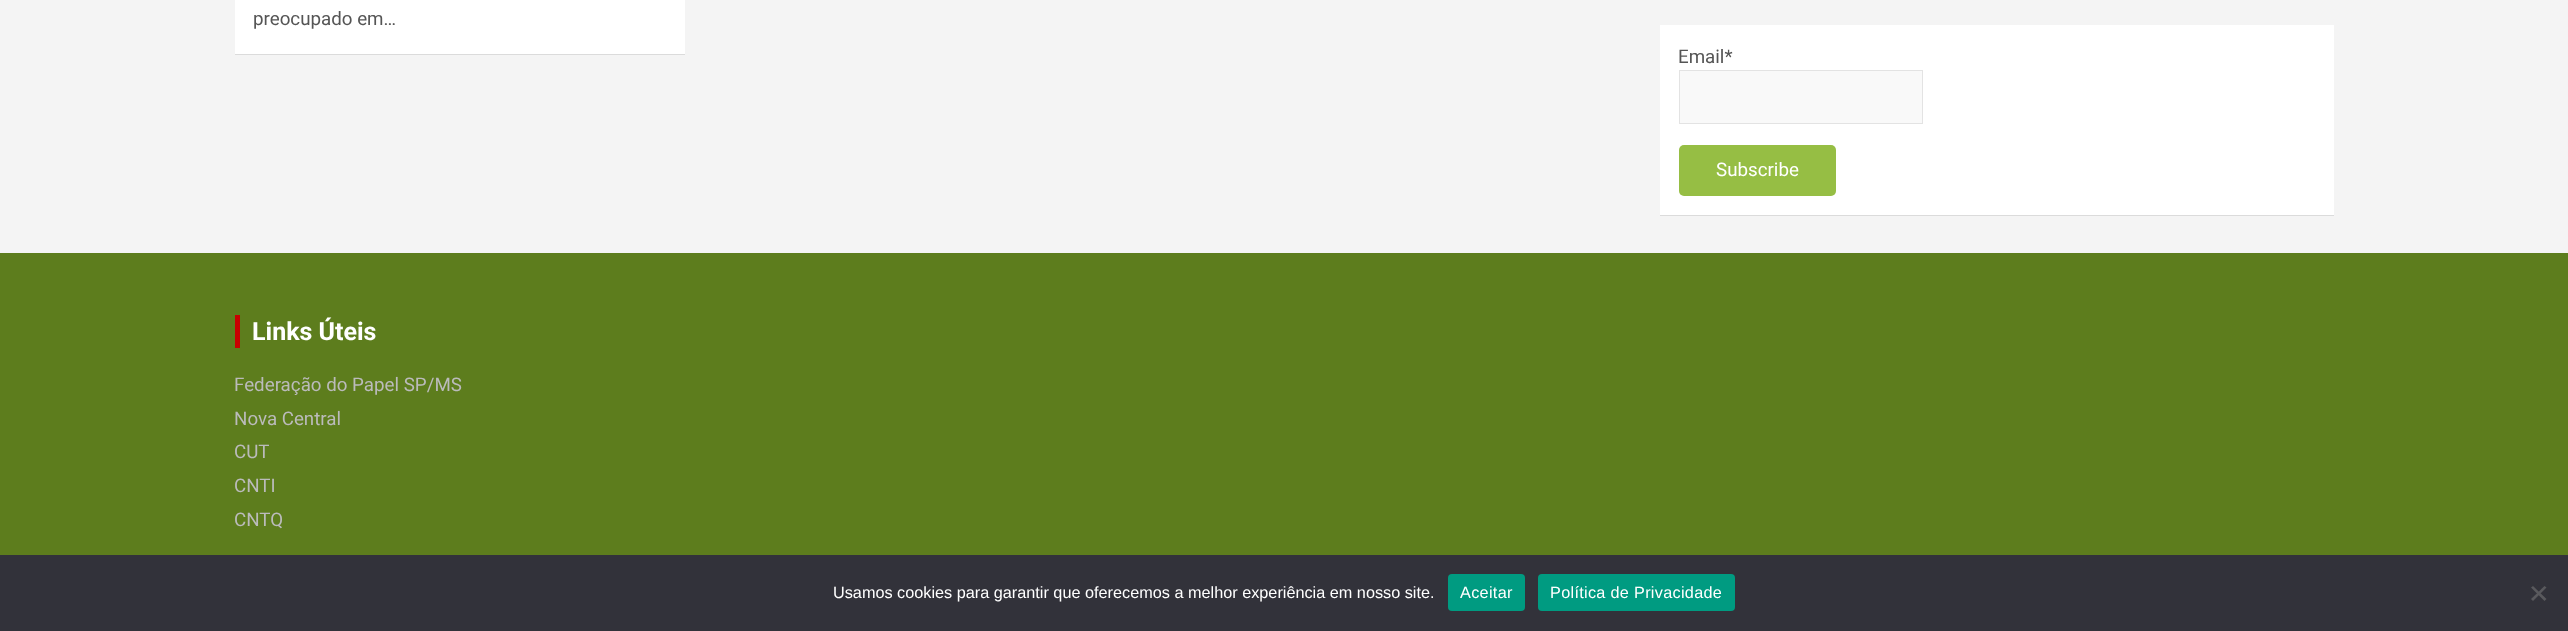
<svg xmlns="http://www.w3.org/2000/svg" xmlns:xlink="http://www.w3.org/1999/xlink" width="2568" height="631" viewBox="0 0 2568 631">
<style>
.cls-1{font:18.75px Roboto;fill:#555555}
.cls-2{font:18.75px Roboto;fill:#ffffff}
.cls-3{font:bold 25px Roboto;fill:#ffffff}
.cls-4{font:18.75px Roboto;fill:#bbbbbb}
.cls-5{font:16.25px Liberation Sans;fill:#ffffff}
.cls-6{font:16.25px Liberation Sans;letter-spacing:0.3px;fill:#ffffff}
</style>
<rect width="100%" height="100%" fill="#f4f4f4"/>
<rect fill="#000000" fill-opacity="0.1" filter="blur(0.5px)" x="235" y="-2" width="450" height="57"/>
<rect fill="#ffffff" x="235" y="0" width="450" height="54"/>
<rect fill="#000000" fill-opacity="0.1" filter="blur(0.5px)" x="1660" y="26" width="674" height="190"/>
<rect fill="#ffffff" x="1660" y="25" width="674" height="190"/>
<rect fill="#f9f9f9" stroke="#e3e3e3" x="1679.5" y="70.5" width="243" height="53"/>
<rect fill="#96be44" x="1679" y="145" width="157" height="51" rx="5"/>
<rect fill="#5d7d1d" x="0" y="253" width="2568" height="302"/>
<rect fill="#c80000" x="235" y="315" width="5" height="33"/>
<rect fill="#32323a" x="0" y="555" width="2568" height="76"/>
<rect fill="#009b81" x="1448" y="574" width="77" height="37" rx="4"/>
<rect fill="#009b81" x="1538" y="574" width="197" height="37" rx="4"/>
<path fill="#59595d" d="M2544.5 586L2546.5 587.5L2533 601L2531 599Z"/>
<path fill="#59595d" d="M2531 587.5L2533 586L2546.5 599L2544.5 601Z"/>
<text class="cls-1" x="253" y="25">preocupado em…</text>
<text class="cls-1" x="1678" y="63">Email*</text>
<text class="cls-2" x="1716" y="176">Subscribe</text>
<text class="cls-3" x="252" y="340">Links Úteis</text>
<text class="cls-4"><tspan x="234" y="391">Federação do Papel SP/MS</tspan><tspan x="234" y="425">Nova Central</tspan><tspan x="234" y="458">CUT</tspan><tspan x="234" y="492">CNTI</tspan><tspan x="234" y="526">CNTQ</tspan></text>
<text class="cls-5" x="833" y="598">Usamos cookies para garantir que oferecemos a melhor experiência em nosso site.</text>
<text class="cls-6" x="1460" y="598">Aceitar</text>
<text class="cls-6" x="1550" y="598">Política de Privacidade</text>
</svg>
